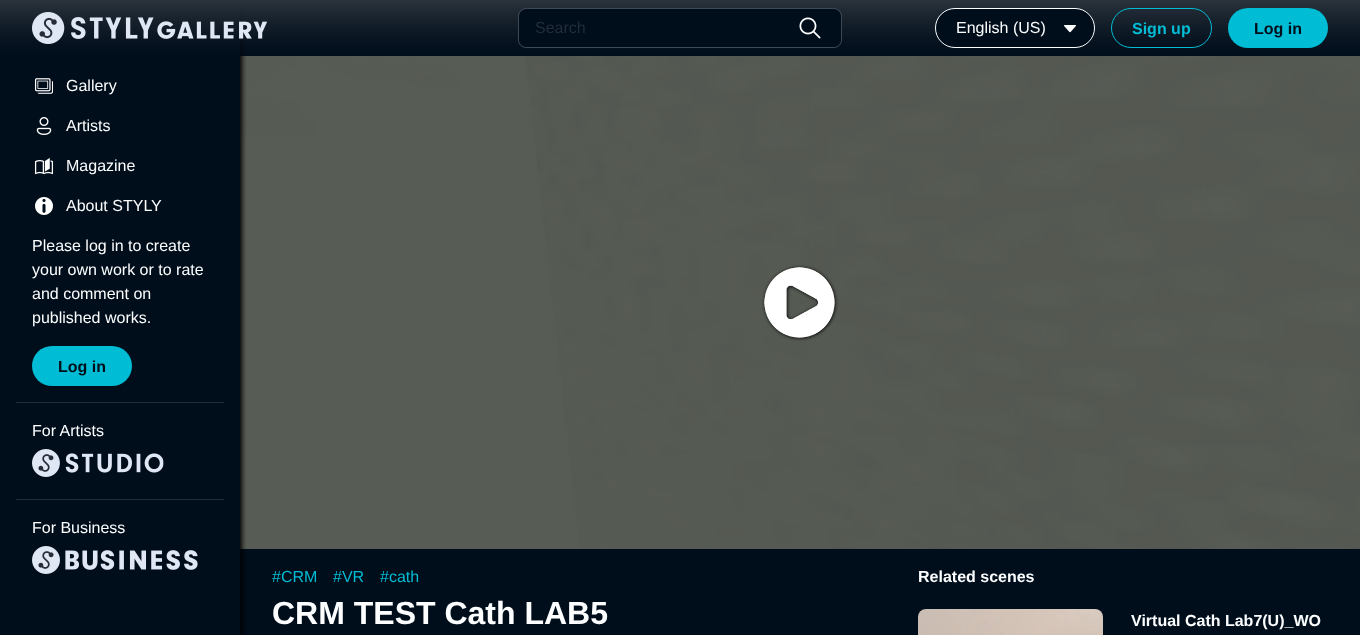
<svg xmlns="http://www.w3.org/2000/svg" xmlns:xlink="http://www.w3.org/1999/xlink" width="1360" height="635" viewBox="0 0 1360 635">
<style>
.cls-1{font:16px Liberation Sans;fill:#212d3a}
.cls-2{font:16px Liberation Sans;fill:#fcfeff}
.cls-3{font:bold 16px Liberation Sans;fill:#00bcd4}
.cls-4{font:bold 16px Liberation Sans;fill:#000d1a}
.cls-5{font:16px Liberation Sans;fill:#00bcd4}
.cls-6{font:bold 32px Liberation Sans;fill:#fcfeff}
.cls-7{font:bold 16px Liberation Sans;fill:#fcfeff}
</style>
<defs>
<clipPath id="clip1"><rect x="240" y="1" width="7" height="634"/></clipPath>
<linearGradient id="g1" gradientUnits="userSpaceOnUse" x1="680" y1="0" x2="680" y2="56"><stop offset="0" stop-color="#2b343d"/><stop offset="1" stop-color="#000d1a" stop-opacity="0.5"/></linearGradient>
<clipPath id="clip2"><rect x="519" y="9" width="322" height="38" rx="7"/></clipPath>
</defs>
<rect width="100%" height="100%" fill="#000d1a"/>
<image xlink:href="image9.png" x="240" y="56" width="1120" height="493"/>
<g clip-path="url(#clip1)">
<rect fill="#000000" filter="blur(2.5px)" x="2" y="0" width="240" height="635"/>
</g>
<rect fill="url(#g1)" x="0" y="0" width="1360" height="56"/>
<image xlink:href="image0.png" x="32" y="12" width="235" height="32"/>
<rect fill="none" stroke="#3d4955" x="518.5" y="8.5" width="323" height="39" rx="7.5"/>
<g clip-path="url(#clip2)">
<path fill="#000d1a" d="M527 9H779V47H527C522.5 47 519 43.5 519 39V17C519 12.5 522.5 9 527 9Z"/>
<path fill="#000d1a" d="M779 9H833C837.5 9 841 12.5 841 17V39C841 43.5 837.5 47 833 47H779Z"/>
</g>
<image xlink:href="image1.png" x="799" y="17" width="22" height="22"/>
<rect fill="#000d1a" stroke="#fcfeff" x="935.5" y="8.5" width="159" height="39" rx="19.5"/>
<image xlink:href="image2.png" x="1064" y="25" width="12" height="8"/>
<rect fill="none" stroke="#00bcd4" x="1111.5" y="8.5" width="100" height="39" rx="19.5"/>
<rect fill="#00bcd4" x="1228" y="8" width="100" height="40" rx="20"/>
<image xlink:href="image3.png" x="34" y="78" width="20" height="16"/>
<image xlink:href="image4.png" x="36" y="117" width="16" height="18"/>
<image xlink:href="image5.png" x="34" y="158" width="20" height="17"/>
<image xlink:href="image6.png" x="35" y="197" width="18" height="18"/>
<rect fill="#00bcd4" x="32" y="346" width="100" height="40" rx="20"/>
<rect fill="#1f2b38" x="16" y="402" width="208" height="1"/>
<image xlink:href="image7.png" x="32" y="449" width="132" height="28"/>
<rect fill="#1f2b38" x="16" y="499" width="208" height="1"/>
<image xlink:href="image8.png" x="32" y="546" width="166" height="28"/>
<image xlink:href="image10.png" x="918" y="609" width="185" height="26"/>
<text class="cls-1" x="535" y="33">Search</text>
<text class="cls-2" x="956" y="33">English (US)</text>
<text class="cls-3" x="1132" y="34">Sign up</text>
<text class="cls-4" x="1254" y="34">Log in</text>
<text class="cls-2" x="66" y="91">Gallery</text>
<text class="cls-2" x="66" y="131">Artists</text>
<text class="cls-2" x="66" y="171">Magazine</text>
<text class="cls-2" x="66" y="211">About STYLY</text>
<text class="cls-2"><tspan x="32" y="251">Please log in to create</tspan><tspan x="32" y="275">your own work or to rate</tspan><tspan x="32" y="299">and comment on</tspan><tspan x="32" y="323">published works.</tspan></text>
<text class="cls-4" x="58" y="372">Log in</text>
<text class="cls-2" x="32" y="436">For Artists</text>
<text class="cls-2" x="32" y="533">For Business</text>
<text class="cls-5" x="272" y="582">#CRM</text>
<text class="cls-5" x="333" y="582">#VR</text>
<text class="cls-5" x="380" y="582">#cath</text>
<text class="cls-6" x="272" y="624">CRM TEST Cath LAB5</text>
<text class="cls-7" x="918" y="582">Related scenes</text>
<text class="cls-7" x="1131" y="626">Virtual Cath Lab7(U)_WO</text>
</svg>
